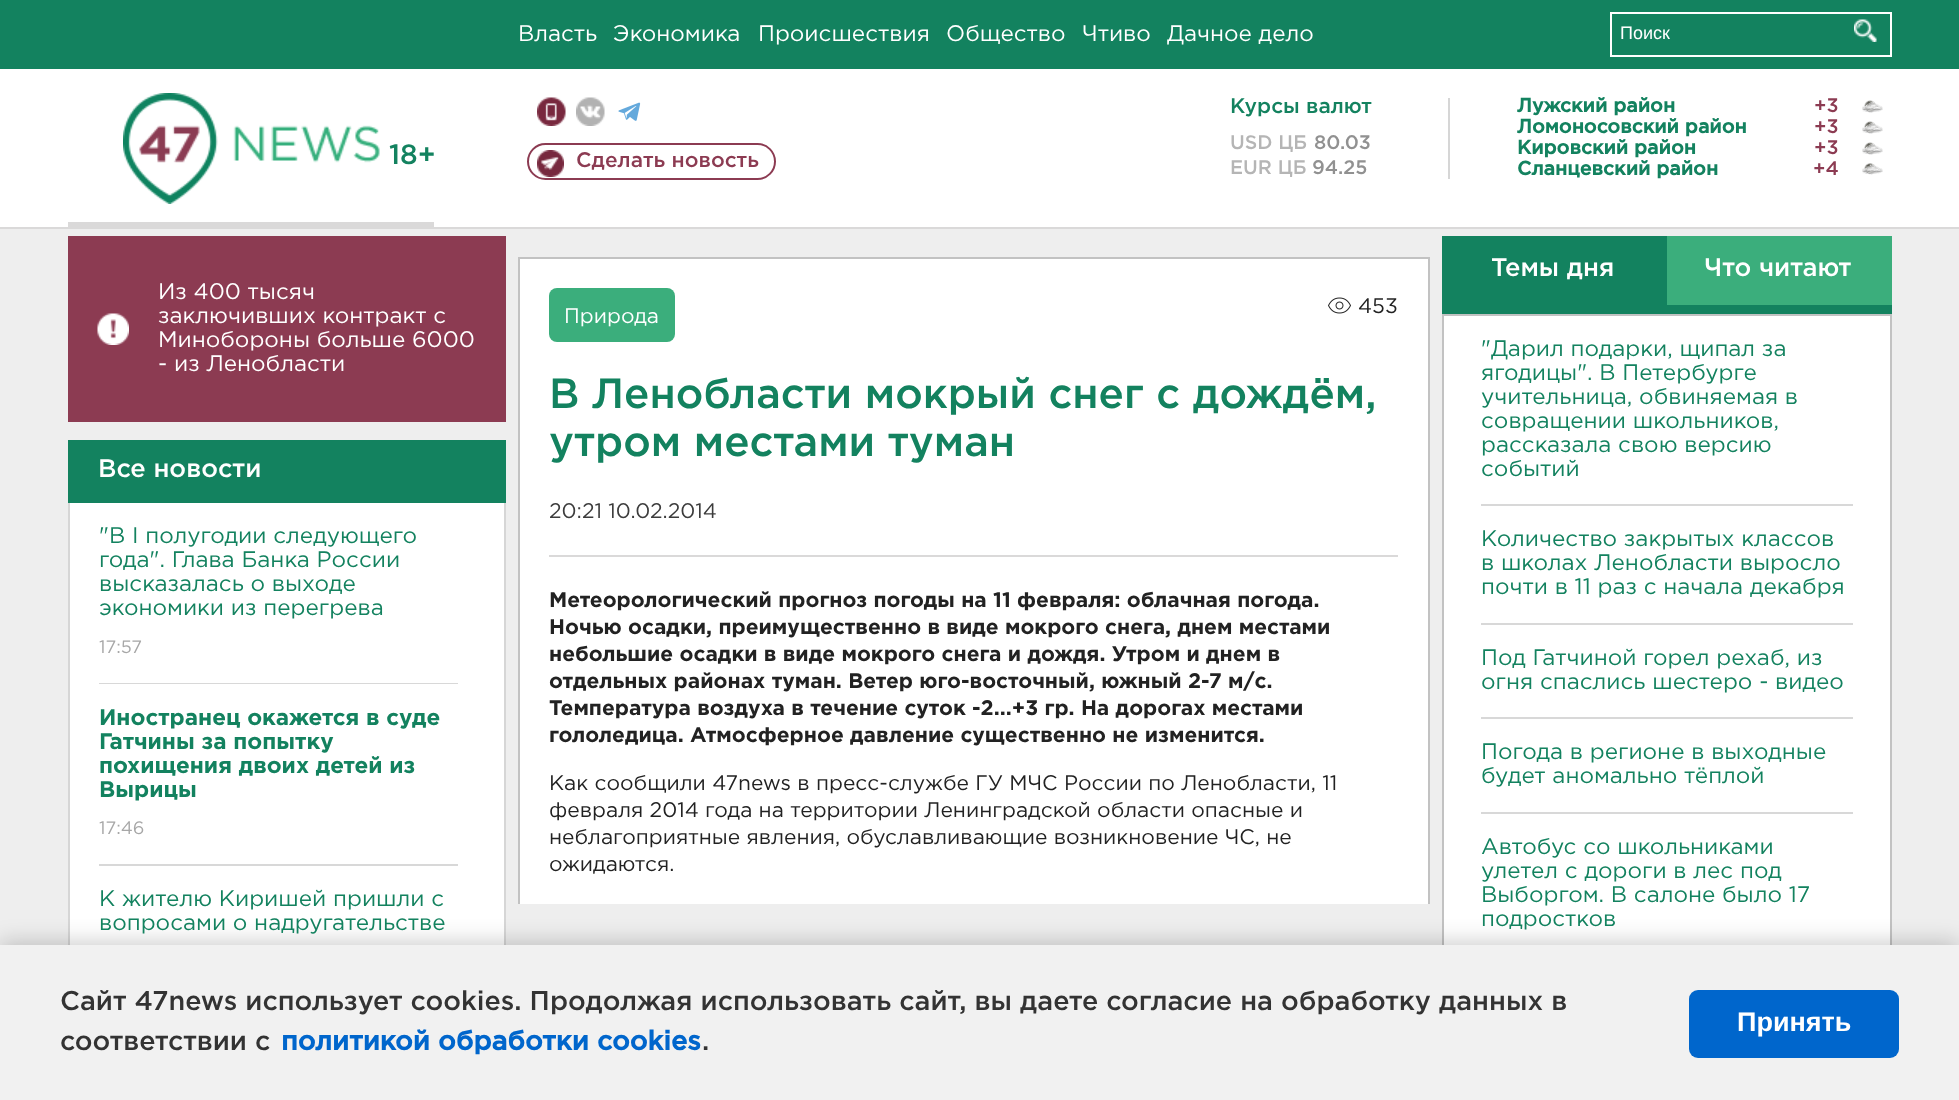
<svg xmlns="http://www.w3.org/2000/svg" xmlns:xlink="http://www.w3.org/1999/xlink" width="1959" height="1100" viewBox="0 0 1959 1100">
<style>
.cls-1{font:22.5px Gotham;fill:#ffffff}
.cls-2{font:18px Liberation Sans;fill:#ffffff}
.cls-3{font:500 21px Gotham;fill:#13825f}
.cls-4{font:500 19.5px Gotham;fill:#b5b5b5}
.cls-5{font:500 19.5px Gotham;fill:#919191}
.cls-6{font:bold 19.5px Gotham;fill:#13825f}
.cls-7{font:500 19.5px Gotham;fill:#8c3b52}
.cls-8{font:500 28px Gotham;fill:#13825f}
.cls-9{font:500 21px Gotham;fill:#8c3b52}
.cls-10{font:500 25.5px Gotham;fill:#ffffff}
.cls-11{font:22.5px Gotham;fill:#13825f}
.cls-12{font:18px Gotham;fill:#a7a7a7}
.cls-13{font:bold 22.5px 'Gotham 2';fill:#13825f}
.cls-14{font:21px Gotham;fill:#222222}
.cls-15{font:21px Gotham;fill:#ffffff}
.cls-16{font:500 42px Gotham;fill:#13825f}
.cls-17{font:21px Gotham;fill:#3c3c3c}
.cls-18{font:bold 21px 'Gotham 2';fill:#222222}
.cls-19{font:500 27px Gotham;fill:#333333}
.cls-20{font:bold 27px Gotham;fill:#0066cc}
.cls-21{font:bold 27px Liberation Sans;fill:#ffffff}
</style>
<rect width="100%" height="100%" fill="#eeeeee"/>
<rect fill="#13825f" x="0" y="0" width="1959" height="69"/>
<rect fill="none" stroke="#ffffff" stroke-width="2" x="1611" y="13" width="280" height="43"/>
<image xlink:href="image0.png" x="1854" y="19" width="23" height="23"/>
<rect fill="#ffffff" x="0" y="69" width="1959" height="158"/>
<rect fill="#dad9d9" x="0" y="227" width="1959" height="2"/>
<rect fill="#dad9d9" x="68" y="222" width="366" height="5"/>
<image xlink:href="image1.png" x="123" y="93" width="257" height="111"/>
<rect fill="#d6d6d6" x="1448" y="98" width="2" height="81"/>
<image xlink:href="image2.png" x="1862" y="100" width="21" height="13"/>
<image xlink:href="image2.png" x="1862" y="121" width="21" height="13"/>
<image xlink:href="image2.png" x="1862" y="142" width="21" height="13"/>
<image xlink:href="image3.png" x="1862" y="163" width="21" height="12"/>
<image xlink:href="image4.png" x="537" y="97" width="29" height="29"/>
<image xlink:href="image5.png" x="576" y="97" width="29" height="29"/>
<image xlink:href="image6.png" x="618" y="102" width="23" height="19"/>
<image xlink:href="image7.png" x="537" y="150" width="27" height="27"/>
<rect fill="none" stroke="#8c3b52" stroke-width="2" x="528" y="144" width="247" height="35" rx="17.5"/>
<rect fill="#8c3b52" x="68" y="236" width="438" height="186"/>
<image xlink:href="image8.png" x="97" y="313" width="32" height="32"/>
<rect fill="#13825f" x="68" y="440" width="438" height="63"/>
<rect fill="#ffffff" x="70" y="503" width="434" height="442"/>
<rect fill="#d6d6d6" x="504" y="503" width="2" height="442"/>
<rect fill="#d6d6d6" x="68" y="503" width="2" height="442"/>
<rect fill="#d8d8d8" x="99" y="683" width="359" height="1"/>
<rect fill="#d8d8d8" x="99" y="864" width="359" height="2"/>
<rect fill="#ffffff" x="520" y="259" width="908" height="645"/>
<rect fill="none" stroke="#c2c2c2" stroke-width="2" x="519" y="258" width="910" height="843"/>
<rect fill="#dad9d9" x="549" y="555" width="849" height="2"/>
<image xlink:href="image9.png" x="1328" y="297" width="23" height="17"/>
<rect fill="#3bae7c" x="549" y="288" width="126" height="54" rx="8"/>
<rect fill="#eeeeee" x="518" y="904" width="912" height="41"/>
<rect fill="#13825f" x="1442" y="236" width="450" height="78"/>
<rect fill="#3bae7c" x="1667" y="236" width="225" height="69"/>
<rect fill="#ffffff" x="1444" y="316" width="446" height="629"/>
<rect fill="#c2c2c2" x="1442" y="314" width="450" height="2"/>
<rect fill="#c2c2c2" x="1890" y="314" width="2" height="631"/>
<rect fill="#c2c2c2" x="1442" y="314" width="2" height="631"/>
<rect fill="#d8d8d8" x="1481" y="504" width="372" height="2"/>
<rect fill="#d8d8d8" x="1481" y="623" width="372" height="2"/>
<rect fill="#d8d8d8" x="1481" y="717" width="372" height="2"/>
<rect fill="#d8d8d8" x="1481" y="812" width="372" height="2"/>
<rect fill="#000000" fill-opacity="0.2" filter="blur(11px)" x="0" y="942" width="1959" height="156"/>
<rect fill="#f1f1f1" x="0" y="945" width="1959" height="155"/>
<rect fill="#0066cc" x="1689" y="990" width="210" height="68" rx="9"/>
<text class="cls-1" x="518" y="41">Власть</text>
<text class="cls-1" x="613" y="41">Экономика</text>
<text class="cls-1" x="758" y="41">Происшествия</text>
<text class="cls-1" x="946" y="41">Общество</text>
<text class="cls-1" x="1082" y="41">Чтиво</text>
<text class="cls-1" x="1167" y="41">Дачное дело</text>
<text class="cls-2" x="1620" y="39">Поиск</text>
<text class="cls-3" x="1230" y="113">Курсы валют</text>
<text class="cls-4" x="1230" y="149">USD ЦБ</text>
<text class="cls-5" x="1314" y="149">80.03</text>
<text class="cls-4" x="1230" y="174">EUR ЦБ</text>
<text class="cls-5" x="1312" y="174">94.25</text>
<text class="cls-6" x="1517" y="112">Лужский район</text>
<text class="cls-7" x="1814" y="112">+3</text>
<text class="cls-6" x="1517" y="133">Ломоносовский район</text>
<text class="cls-7" x="1814" y="133">+3</text>
<text class="cls-6" x="1517" y="154">Кировский район</text>
<text class="cls-7" x="1814" y="154">+3</text>
<text class="cls-6" x="1517" y="175">Сланцевский район</text>
<text class="cls-7" x="1813" y="175">+4</text>
<text class="cls-8" x="389" y="164">18+</text>
<text class="cls-9" x="576" y="167">Сделать новость</text>
<text class="cls-1"><tspan x="158" y="299">Из 400 тысяч</tspan><tspan x="158" y="323">заключивших контракт с</tspan><tspan x="158" y="347">Минобороны больше 6000</tspan><tspan x="158" y="371">- из Ленобласти</tspan></text>
<text class="cls-10" x="98" y="477">Все новости</text>
<text class="cls-11"><tspan x="99" y="543">"В I полугодии следующего</tspan><tspan x="99" y="567">года". Глава Банка России</tspan><tspan x="99" y="591">высказалась о выходе</tspan><tspan x="99" y="615">экономики из перегрева</tspan></text>
<text class="cls-12" x="99" y="653">17:57</text>
<text class="cls-13"><tspan x="99" y="725">Иностранец окажется в суде</tspan><tspan x="99" y="749">Гатчины за попытку</tspan><tspan x="99" y="773">похищения двоих детей из</tspan><tspan x="99" y="797">Вырицы</tspan></text>
<text class="cls-12" x="99" y="834">17:46</text>
<text class="cls-11"><tspan x="99" y="906">К жителю Киришей пришли с</tspan><tspan x="99" y="930">вопросами о надругательстве</tspan></text>
<text class="cls-14" x="1358" y="313">453</text>
<text class="cls-15" x="564" y="323">Природа</text>
<text class="cls-16"><tspan x="549" y="408">В Ленобласти мокрый снег с дождём,</tspan><tspan x="549" y="456">утром местами туман</tspan></text>
<text class="cls-17" x="549" y="518">20:21 10.02.2014</text>
<text class="cls-18"><tspan x="549" y="607">Метеорологический прогноз погоды на 11 февраля: облачная погода.</tspan><tspan x="549" y="634">Ночью осадки, преимущественно в виде мокрого снега, днем местами</tspan><tspan x="549" y="661">небольшие осадки в виде мокрого снега и дождя. Утром и днем в</tspan><tspan x="549" y="688">отдельных районах туман. Ветер юго-восточный, южный 2-7 м/с.</tspan><tspan x="549" y="715">Температура воздуха в течение суток -2...+3 гр. На дорогах местами</tspan><tspan x="549" y="742">гололедица. Атмосферное давление существенно не изменится.</tspan></text>
<text class="cls-14"><tspan x="549" y="790">Как сообщили 47news в пресс-службе ГУ МЧС России по Ленобласти, 11</tspan><tspan x="549" y="817">февраля 2014 года на территории Ленинградской области опасные и</tspan><tspan x="549" y="844">неблагоприятные явления, обуславливающие возникновение ЧС, не</tspan><tspan x="549" y="871">ожидаются.</tspan></text>
<text class="cls-10" x="1491" y="276">Темы дня</text>
<text class="cls-10" x="1704" y="276">Что читают</text>
<text class="cls-11"><tspan x="1481" y="356">"Дарил подарки, щипал за</tspan><tspan x="1481" y="380">ягодицы". В Петербурге</tspan><tspan x="1481" y="404">учительница, обвиняемая в</tspan><tspan x="1481" y="428">совращении школьников,</tspan><tspan x="1481" y="452">рассказала свою версию</tspan><tspan x="1481" y="476">событий</tspan></text>
<text class="cls-11"><tspan x="1481" y="546">Количество закрытых классов</tspan><tspan x="1481" y="570">в школах Ленобласти выросло</tspan><tspan x="1481" y="594">почти в 11 раз с начала декабря</tspan></text>
<text class="cls-11"><tspan x="1481" y="665">Под Гатчиной горел рехаб, из</tspan><tspan x="1481" y="689">огня спаслись шестеро - видео</tspan></text>
<text class="cls-11"><tspan x="1481" y="759">Погода в регионе в выходные</tspan><tspan x="1481" y="783">будет аномально тёплой</tspan></text>
<text class="cls-11"><tspan x="1481" y="854">Автобус со школьниками</tspan><tspan x="1481" y="878">улетел с дороги в лес под</tspan><tspan x="1481" y="902">Выборгом. В салоне было 17</tspan><tspan x="1481" y="926">подростков</tspan></text>
<text class="cls-19"><tspan x="60" y="1010">Сайт 47news использует cookies. Продолжая использовать сайт, вы даете согласие на обработку данных в</tspan><tspan x="60" y="1050">соответствии с</tspan></text>
<text class="cls-20" x="281" y="1050">политикой обработки cookies</text>
<text class="cls-19" x="702" y="1050">.</text>
<text class="cls-21" x="1737" y="1031">Принять</text>
</svg>
